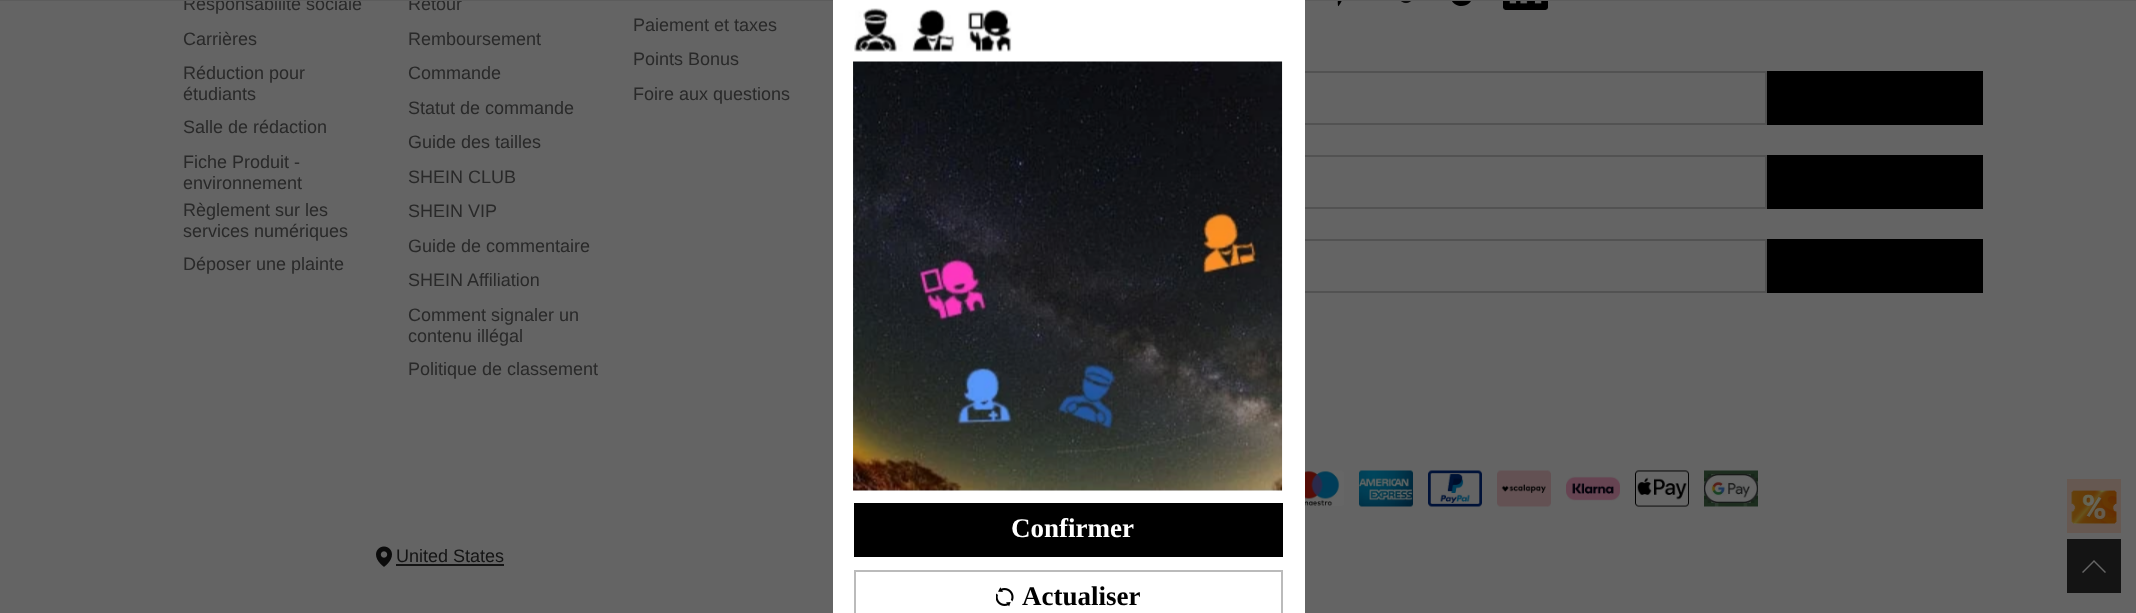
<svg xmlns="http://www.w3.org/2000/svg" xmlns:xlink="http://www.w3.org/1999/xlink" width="2136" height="613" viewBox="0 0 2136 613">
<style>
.cls-1{font:18px Liberation Sans;fill:#292929}
.cls-2{font:18px Liberation Sans;fill:#141414}
.cls-3{font:bold 27px Liberation Serif;fill:#ffffff}
.cls-4{font:bold 27px Liberation Serif;fill:#000000}
</style>
<rect width="100%" height="100%" fill="#646464"/>
<image xlink:href="image0.png" x="1337" y="1" width="5" height="6"/>
<image xlink:href="image1.png" x="1401" y="1" width="11" height="3"/>
<image xlink:href="image2.png" x="1452" y="1" width="19" height="5"/>
<image xlink:href="image3.png" x="1503" y="1" width="45" height="9"/>
<rect fill="none" stroke="#525252" stroke-width="2" x="1084" y="72" width="682" height="52"/>
<rect fill="#000000" x="1767" y="71" width="216" height="54"/>
<rect fill="none" stroke="#525252" stroke-width="2" x="1204" y="156" width="562" height="52"/>
<rect fill="#000000" x="1767" y="155" width="216" height="54"/>
<rect fill="none" stroke="#525252" stroke-width="2" x="1204" y="240" width="562" height="52"/>
<rect fill="#000000" x="1767" y="239" width="216" height="54"/>
<image xlink:href="image4.png" x="1305" y="470" width="39" height="36"/>
<image xlink:href="image5.png" x="1359" y="470" width="54" height="37"/>
<image xlink:href="image6.png" x="1428" y="470" width="54" height="37"/>
<image xlink:href="image7.png" x="1497" y="470" width="54" height="37"/>
<image xlink:href="image8.png" x="1566" y="476" width="54" height="25"/>
<image xlink:href="image9.png" x="1635" y="470" width="54" height="37"/>
<image xlink:href="image10.png" x="1704" y="470" width="54" height="37"/>
<image xlink:href="image11.png" x="376" y="546" width="16" height="21"/>
<rect fill="#141414" x="396" y="564" width="108" height="2"/>
<rect fill="#665851" x="2067" y="479" width="54" height="54"/>
<image xlink:href="image12.png" x="2071" y="490" width="46" height="34"/>
<rect fill="#141414" x="2067" y="539" width="54" height="54"/>
<path fill="#666666" d="M2106 572L2094 560L2082 572L2083 573L2094 562L2105 573Z"/>
<text class="cls-1"><tspan x="183" y="10">Responsabilité sociale</tspan><tspan x="183" y="45">Carrières</tspan><tspan x="183" y="79">Réduction pour</tspan><tspan x="183" y="100">étudiants</tspan><tspan x="183" y="133">Salle de rédaction</tspan><tspan x="183" y="168">Fiche Produit -</tspan><tspan x="183" y="189">environnement</tspan><tspan x="183" y="216">Règlement sur les</tspan><tspan x="183" y="237">services numériques</tspan><tspan x="183" y="270">Déposer une plainte</tspan></text>
<text class="cls-1" x="408" y="10">Retour</text>
<rect fill="#5c5c5c" x="0" y="0" width="2136" height="1"/>
<text class="cls-1"><tspan x="408" y="45">Remboursement</tspan><tspan x="408" y="79">Commande</tspan><tspan x="408" y="114">Statut de commande</tspan><tspan x="408" y="148">Guide des tailles</tspan><tspan x="408" y="183">SHEIN CLUB</tspan><tspan x="408" y="217">SHEIN VIP</tspan><tspan x="408" y="252">Guide de commentaire</tspan><tspan x="408" y="286">SHEIN Affiliation</tspan><tspan x="408" y="321">Comment signaler un</tspan><tspan x="408" y="342">contenu illégal</tspan><tspan x="408" y="375">Politique de classement</tspan></text>
<text class="cls-1"><tspan x="633" y="31">Paiement et taxes</tspan><tspan x="633" y="65">Points Bonus</tspan><tspan x="633" y="100">Foire aux questions</tspan></text>
<text class="cls-2" x="396" y="562">United States</text>
<rect fill="#ffffff" x="833" y="0" width="472" height="613"/>
<image xlink:href="image13.png" x="854" y="8" width="158" height="44"/>
<image xlink:href="image14.png" x="853" y="61" width="430" height="430"/>
<rect fill="#000000" x="854" y="503" width="429" height="54"/>
<text class="cls-3" x="1011" y="537">Confirmer</text>
<rect fill="none" stroke="#bbbbbb" stroke-width="2" x="855" y="571" width="427" height="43"/>
<image xlink:href="image15.png" x="996" y="587" width="18" height="20"/>
<text class="cls-4" x="1022" y="605">Actualiser</text>
</svg>
